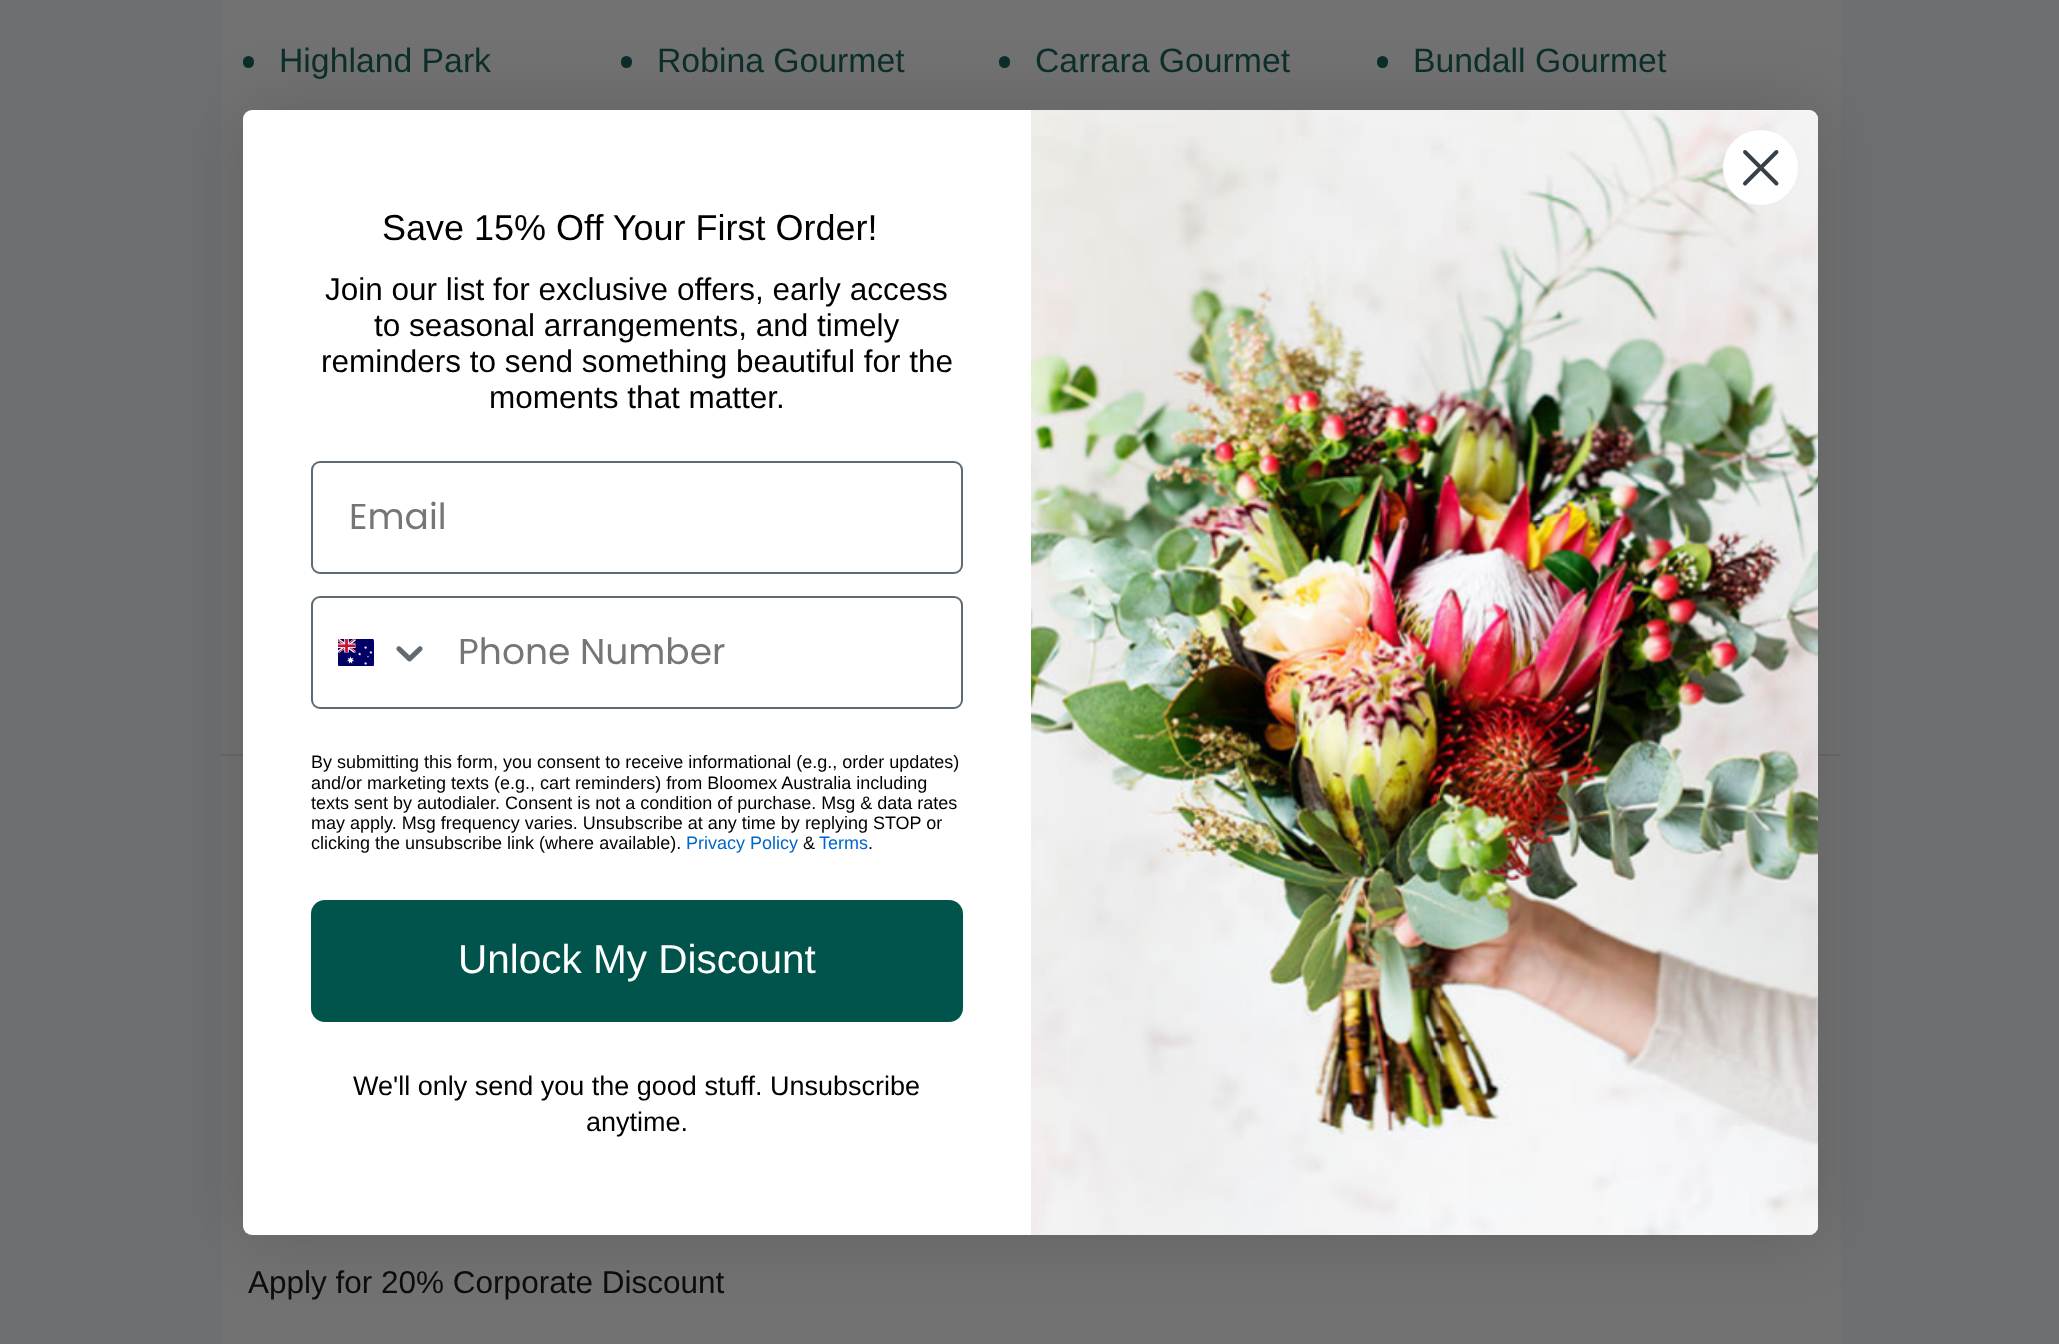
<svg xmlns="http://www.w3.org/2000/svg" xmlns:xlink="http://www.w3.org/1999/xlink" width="2059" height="1344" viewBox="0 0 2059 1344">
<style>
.cls-1{font:33.75px Liberation Sans;fill:#0c2e2a}
.cls-2{font:31.5px Liberation Sans;fill:#0c0c0c}
.cls-3{font:36px Liberation Sans;fill:#000000}
.cls-4{font:31.5px Liberation Sans;fill:#000000}
.cls-5{font:36px Poppins;fill:#767676}
.cls-6{font:18px Liberation Sans;fill:#000000}
.cls-7{font:18px Liberation Sans;fill:#0066cc}
.cls-8{font:40.5px Liberation Sans;fill:#ffffff}
.cls-9{font:27px Liberation Sans;fill:#000000}
</style>
<rect width="100%" height="100%" fill="#6e6f70"/>
<rect fill="#727272" x="221" y="0" width="1620" height="754"/>
<rect fill="#686868" x="221" y="754" width="1620" height="2"/>
<rect fill="#0c2e2a" x="243" y="56" width="11" height="12" rx="5.5"/>
<rect fill="#0c2e2a" x="621" y="56" width="11" height="12" rx="5.5"/>
<rect fill="#0c2e2a" x="999" y="56" width="11" height="12" rx="5.5"/>
<rect fill="#0c2e2a" x="1377" y="56" width="11" height="12" rx="5.5"/>
<rect fill="#727272" x="221" y="756" width="1620" height="588"/>
<rect fill="#000000" fill-opacity="0.15" filter="blur(34px)" x="243" y="110" width="1575" height="1125" rx="9"/>
<rect fill="#ffffff" x="243" y="110" width="1575" height="1125" rx="9"/>
<image xlink:href="image2.png" x="1031" y="110" width="787" height="1125"/>
<circle fill="#ffffff" cx="1760.5" cy="167.5" r="37.5"/>
<path fill="none" stroke="#373f47" stroke-width="3.9" stroke-linecap="round" stroke-linejoin="round" d="M1745 152L1776.5 183.5M1745 183.5L1776.5 152Z"/>
<rect fill="none" stroke="#606a72" stroke-width="2" x="312" y="462" width="650" height="111" rx="8"/>
<rect fill="none" stroke="#606a72" stroke-width="2" x="312" y="597" width="650" height="111" rx="8"/>
<image xlink:href="image0.png" x="338" y="639" width="36" height="27"/>
<image xlink:href="image1.png" x="396" y="646" width="27" height="16"/>
<rect fill="#00544b" x="311" y="900" width="652" height="122" rx="14"/>
<text class="cls-1" x="279" y="72">Highland Park</text>
<text class="cls-1" x="657" y="72">Robina Gourmet</text>
<text class="cls-1" x="1035" y="72">Carrara Gourmet</text>
<text class="cls-1" x="1413" y="72">Bundall Gourmet</text>
<text class="cls-2" x="248" y="1293">Apply for 20% Corporate Discount</text>
<text class="cls-3" x="382" y="240">Save 15% Off Your First Order!</text>
<text class="cls-4" x="325" y="300">Join our list for exclusive offers, early access</text>
<text class="cls-4" x="374" y="336">to seasonal arrangements, and timely</text>
<text class="cls-4" x="321" y="372">reminders to send something beautiful for the</text>
<text class="cls-4" x="489" y="408">moments that matter.</text>
<text class="cls-5" x="349" y="529">Email</text>
<text class="cls-5" x="458" y="664">Phone Number</text>
<text class="cls-6"><tspan x="311" y="768">By submitting this form, you consent to receive informational (e.g., order updates)</tspan><tspan x="311" y="789">and/or marketing texts (e.g., cart reminders) from Bloomex Australia including</tspan><tspan x="311" y="809">texts sent by autodialer. Consent is not a condition of purchase. Msg &amp; data rates</tspan><tspan x="311" y="829">may apply. Msg frequency varies. Unsubscribe at any time by replying STOP or</tspan><tspan x="311" y="849">clicking the unsubscribe link (where available).</tspan></text>
<text class="cls-7" x="686" y="849">Privacy Policy</text>
<text class="cls-6" x="803" y="849">&amp;</text>
<text class="cls-7" x="819" y="849">Terms</text>
<text class="cls-6" x="868" y="849">.</text>
<text class="cls-8" x="458" y="973">Unlock My Discount</text>
<text class="cls-9" x="353" y="1095">We'll only send you the good stuff. Unsubscribe</text>
<text class="cls-9" x="586" y="1131">anytime.</text>
</svg>
